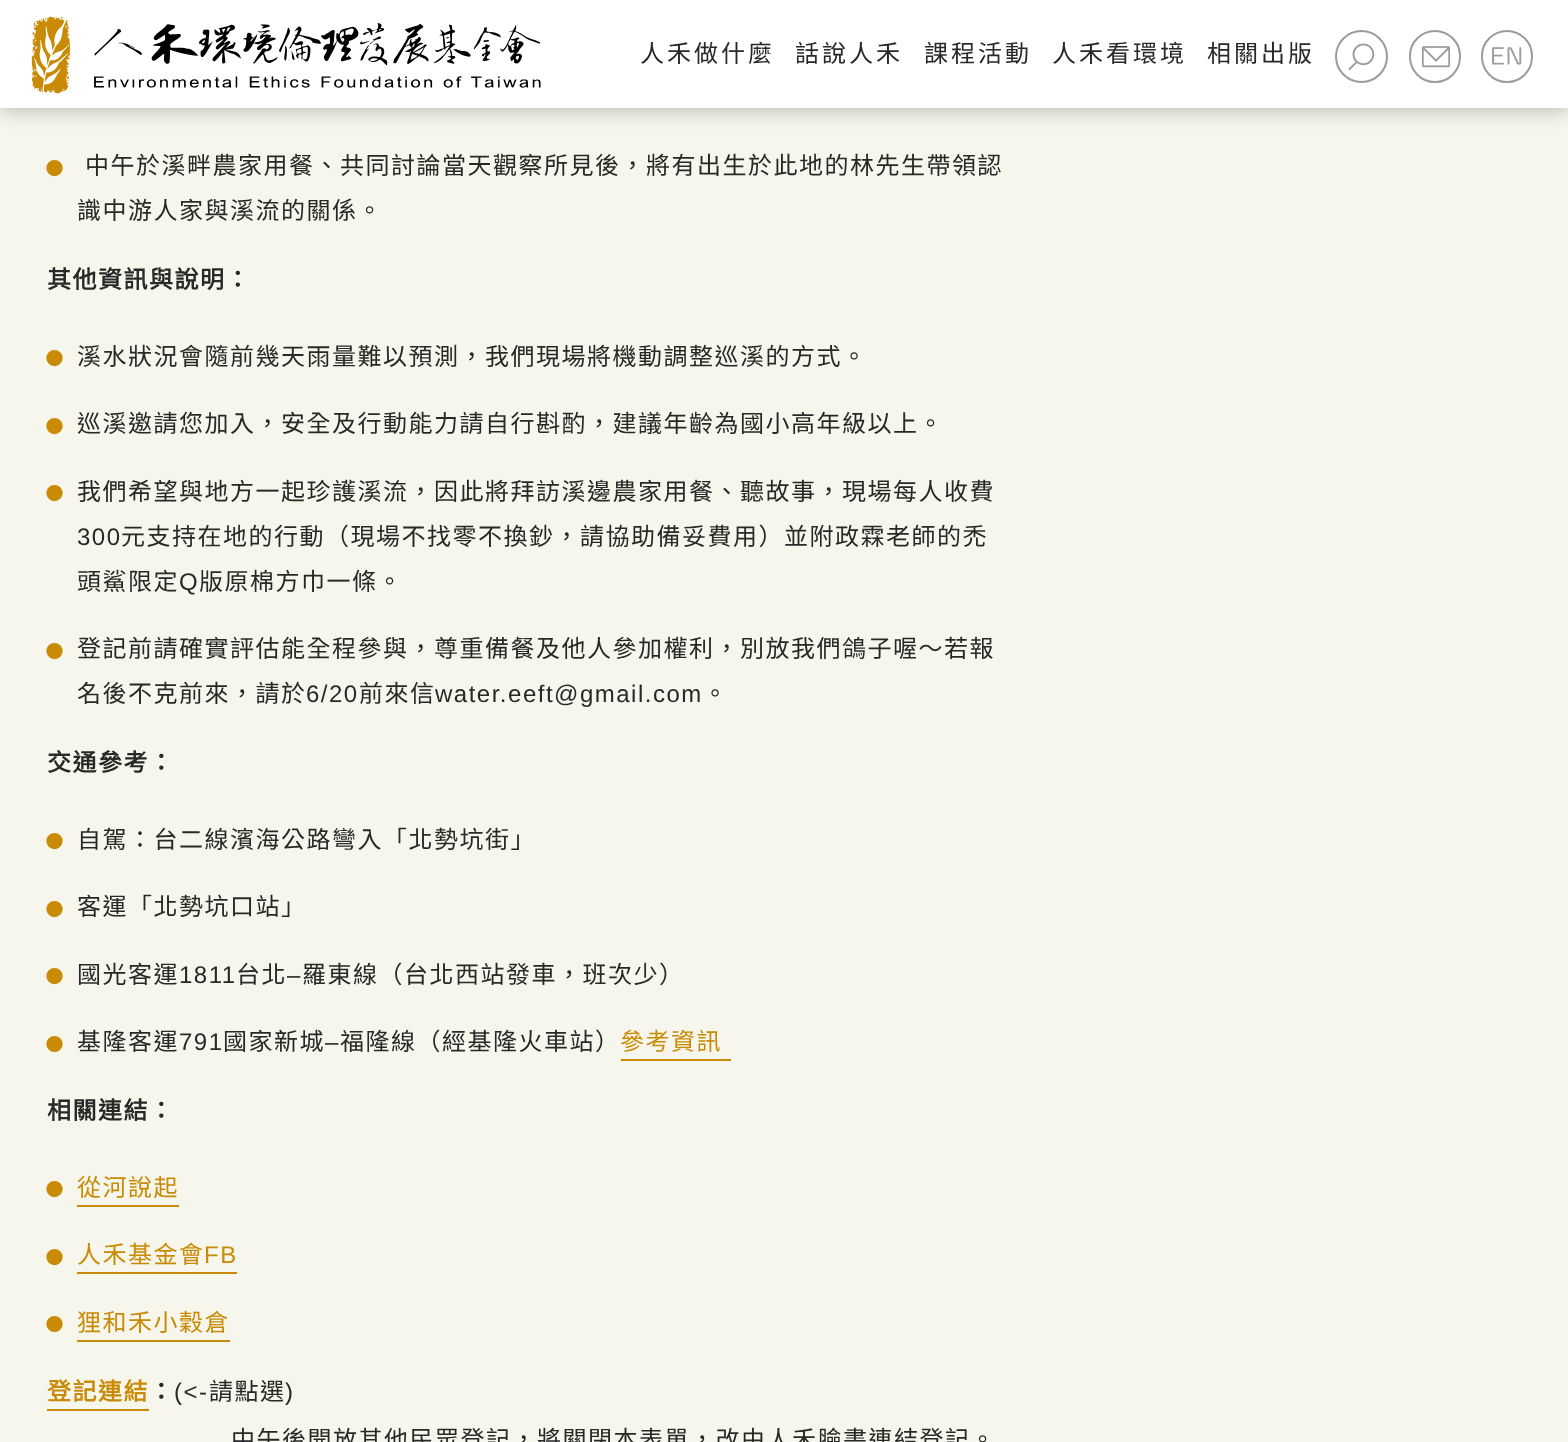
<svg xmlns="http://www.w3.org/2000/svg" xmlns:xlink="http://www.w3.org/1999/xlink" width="1568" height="1442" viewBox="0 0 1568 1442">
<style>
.cls-1{font:24px Noto Sans CJK TC;letter-spacing:3px;fill:#282828}
.cls-2{font:60px Liberation Sans;letter-spacing:1.5px;fill:#c98b05}
.cls-3{font:24px Noto Sans CJK TC;letter-spacing:1.5px;fill:#282828}
.cls-4{font:bold 24px Noto Sans CJK TC;letter-spacing:1.5px;fill:#282828}
.cls-5{font:24px Liberation Sans;letter-spacing:1.5px;fill:#282828}
.cls-6{font:24px Noto Sans CJK TC;letter-spacing:1.5px;fill:#c98b05}
.cls-7{font:24px Liberation Sans;letter-spacing:1.5px;fill:#c98b05}
.cls-8{font:bold 24px Noto Sans CJK TC;letter-spacing:1.5px;fill:#c98b05}
</style>
<rect width="100%" height="100%" fill="#f7f6ed"/>
<rect fill="#000000" fill-opacity="0.3" filter="blur(11px)" x="0" y="0" width="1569" height="108"/>
<rect fill="#ffffff" x="0" y="0" width="1568" height="108"/>
<image xlink:href="image0.png" x="31" y="16" width="510" height="78"/>
<circle fill="none" stroke="#9b9b9b" stroke-width="2" cx="1361.5" cy="56.5" r="25.5"/>
<image xlink:href="image1.png" x="1348" y="43" width="27" height="28"/>
<rect fill="none" stroke="#9b9b9b" stroke-width="2" x="1410" y="31" width="50" height="51" rx="25"/>
<image xlink:href="image2.png" x="1421" y="46" width="30" height="22"/>
<rect fill="none" stroke="#9b9b9b" stroke-width="2" x="1482" y="31" width="50" height="51" rx="25"/>
<image xlink:href="image3.png" x="1492" y="47" width="30" height="18"/>
<rect fill="#c98b05" x="621" y="1059" width="110" height="2"/>
<rect fill="#c98b05" x="77" y="1205" width="102" height="2"/>
<rect fill="#c98b05" x="77" y="1272" width="160" height="2"/>
<rect fill="#c98b05" x="77" y="1340" width="153" height="2"/>
<rect fill="#c98b05" x="47" y="1409" width="102" height="2"/>
<text class="cls-1" x="640" y="62">人禾做什麼</text>
<text class="cls-1" x="795" y="62">話說人禾</text>
<text class="cls-1" x="924" y="62">課程活動</text>
<text class="cls-1" x="1052" y="62">人禾看環境</text>
<text class="cls-1" x="1207" y="62">相關出版</text>
<text class="cls-2" x="44" y="188">•</text>
<text class="cls-3" x="85" y="174">中午於溪畔農家用餐、共同討論當天觀察所見後，將有出生於此地的林先生帶領認</text>
<text class="cls-3" x="77" y="219">識中游人家與溪流的關係。</text>
<text class="cls-4" x="47" y="288">其他資訊與說明：</text>
<text class="cls-2" x="44" y="378">•</text>
<text class="cls-3" x="77" y="365">溪水狀況會隨前幾天雨量難以預測，我們現場將機動調整巡溪的方式。</text>
<text class="cls-2" x="44" y="446">•</text>
<text class="cls-3" x="77" y="432">巡溪邀請您加入，安全及行動能力請自行斟酌，建議年齡為國小高年級以上。</text>
<text class="cls-2" x="44" y="513">•</text>
<text class="cls-3" x="77" y="500">我們希望與地方一起珍護溪流，因此將拜訪溪邊農家用餐、聽故事，現場每人收費</text>
<text class="cls-5" x="77" y="545">300</text>
<text class="cls-3" x="121" y="545">元支持在地的行動（現場不找零不換鈔，請協助備妥費用）並附政霖老師的禿</text>
<text class="cls-3" x="77" y="590">頭鯊限定</text>
<text class="cls-5" x="179" y="590">Q</text>
<text class="cls-3" x="199" y="590">版原棉方巾一條。</text>
<text class="cls-2" x="44" y="671">•</text>
<text class="cls-3"><tspan x="77" y="657">登記前請確實評估能全程參與，尊重備餐及他人參加權利，別放我們鴿子喔～若報</tspan><tspan x="77" y="702">名後不克前來，請於</tspan></text>
<text class="cls-5" x="306" y="702">6/20</text>
<text class="cls-3" x="359" y="702">前來信</text>
<text class="cls-5" x="435" y="702">water.eeft@gmail.com</text>
<text class="cls-3" x="703" y="702">。</text>
<text class="cls-4" x="47" y="771">交通參考：</text>
<text class="cls-2" x="44" y="861">•</text>
<text class="cls-3" x="77" y="848">自駕：台二線濱海公路彎入「北勢坑街」</text>
<text class="cls-2" x="44" y="929">•</text>
<text class="cls-3" x="77" y="915">客運「北勢坑口站」</text>
<text class="cls-2" x="44" y="996">•</text>
<text class="cls-3" x="77" y="983">國光客運</text>
<text class="cls-5" x="179" y="983">1811</text>
<text class="cls-3" x="236" y="983">台北</text>
<text class="cls-5" x="287" y="983">–</text>
<text class="cls-3" x="302" y="983">羅東線（台北西站發車，班次少）</text>
<text class="cls-2" x="44" y="1064">•</text>
<text class="cls-3" x="77" y="1050">基隆客運</text>
<text class="cls-5" x="179" y="1050">791</text>
<text class="cls-3" x="223" y="1050">國家新城</text>
<text class="cls-5" x="325" y="1050">–</text>
<text class="cls-3" x="340" y="1050">福隆線（經基隆火車站）</text>
<text class="cls-6" x="620" y="1050">參考資訊</text>
<text class="cls-4" x="47" y="1119">相關連結：</text>
<text class="cls-2" x="44" y="1209">•</text>
<text class="cls-6" x="77" y="1196">從河說起</text>
<text class="cls-2" x="44" y="1277">•</text>
<text class="cls-6" x="77" y="1263">人禾基金會</text>
<text class="cls-7" x="204" y="1263">FB</text>
<text class="cls-2" x="44" y="1344">•</text>
<text class="cls-6" x="77" y="1331">狸和禾小穀倉</text>
<text class="cls-8" x="47" y="1400">登記連結</text>
<text class="cls-4" x="149" y="1400">：</text>
<text class="cls-5" x="174" y="1400">(&lt;-</text>
<text class="cls-3" x="209" y="1400">請點選</text>
<text class="cls-5" x="285" y="1400">)</text>
<text class="cls-3" x="231" y="1448">中午後開放其他民眾登記，將關閉本表單，改由人禾臉書連結登記。</text>
</svg>
